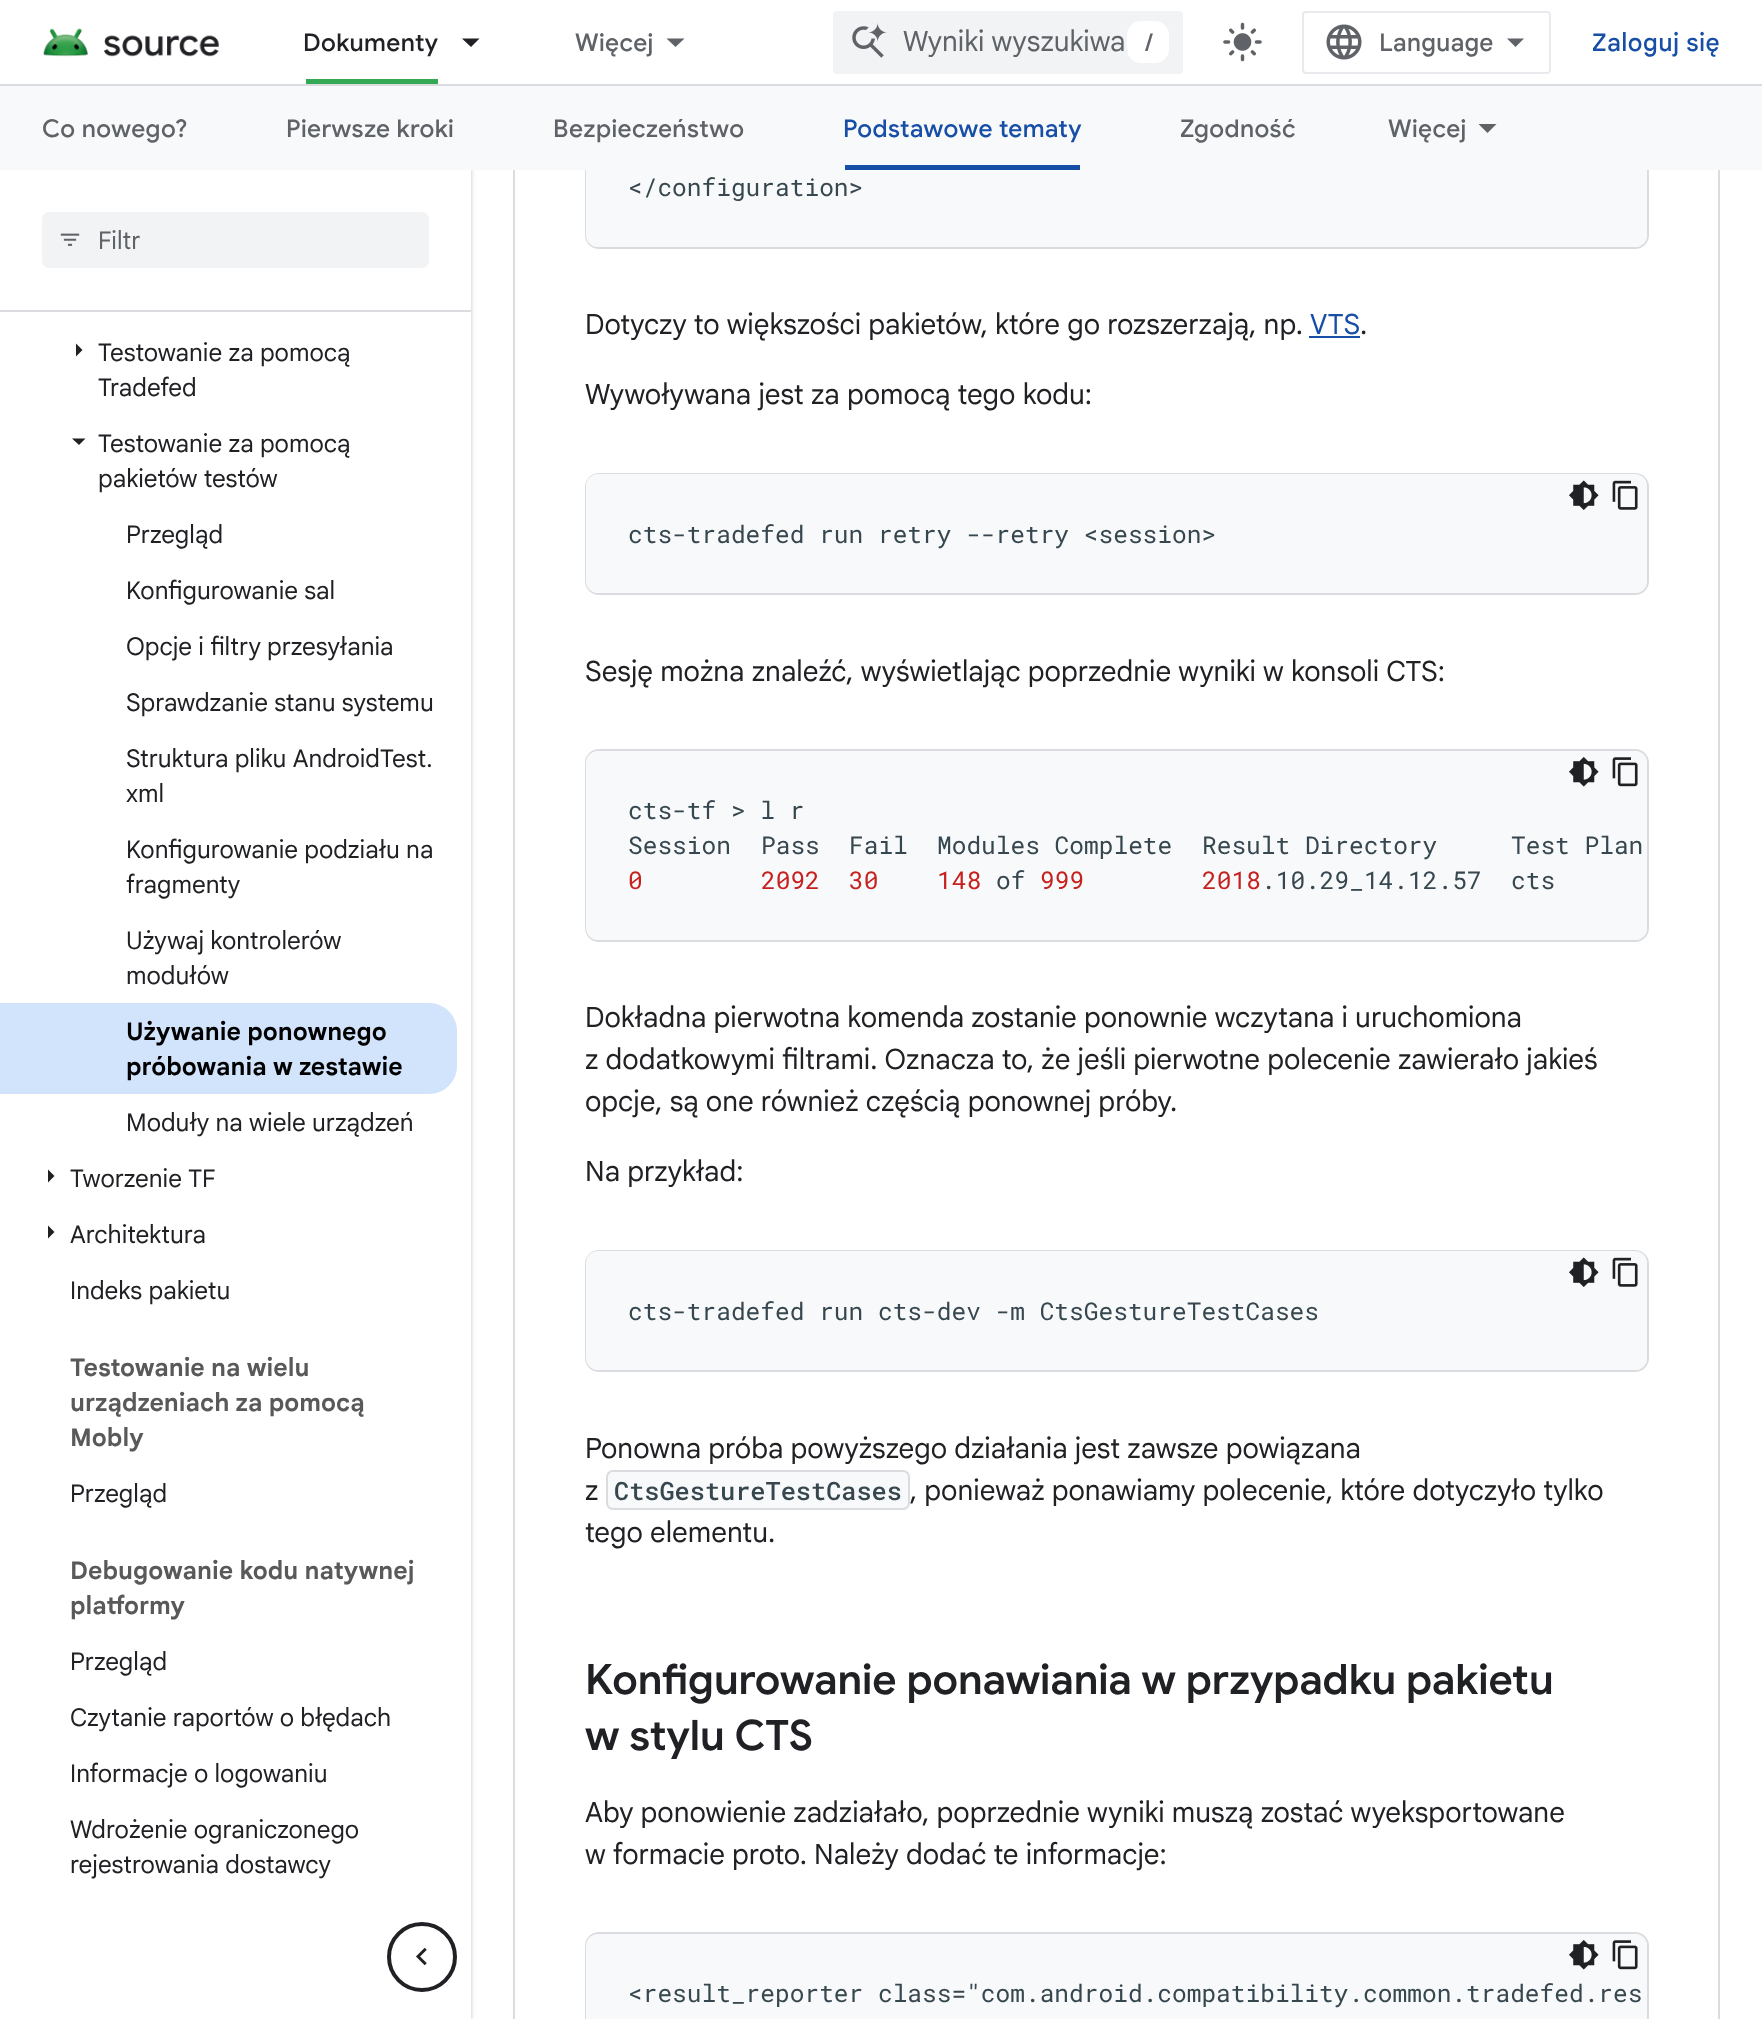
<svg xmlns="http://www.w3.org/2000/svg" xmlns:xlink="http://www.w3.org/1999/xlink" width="1762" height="2019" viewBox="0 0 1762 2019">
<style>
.cls-1{font:500 24.5px Google Sans;letter-spacing:0.4px;fill:#202124}
.cls-2{font:500 24.5px Google Sans;letter-spacing:0.4px;fill:#5f6368}
.cls-3{font:28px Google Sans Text;fill:#5f6368}
.cls-4{font:500 24.5px Google Sans;fill:#5f6368}
.cls-5{font:500 24.5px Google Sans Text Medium;fill:#5f6368}
.cls-6{font:500 24.5px Google Sans Text Medium;letter-spacing:0.4px;fill:#174ea6}
.cls-7{font:500 24.5px Google Sans;letter-spacing:0.4px;fill:#174ea6}
.cls-8{font:24.5px Google Sans Text;fill:#5f6368}
.cls-9{font:24.5px Google Sans Text;fill:#202124}
.cls-10{font:bold 24.5px Google Sans Text;fill:#000000}
.cls-11{font:bold 24.5px Google Sans Text;fill:#595959}
.cls-12{font:24.5px Roboto Mono;fill:#37474f}
.cls-13{font:28px Google Sans Text;fill:#202124}
.cls-14{font:28px Google Sans Text;fill:#174ea6}
.cls-15{font:24.5px Roboto Mono;fill:#c5221f}
.cls-16{font:500 25.25px Roboto Mono;fill:#37474f}
.cls-17{font:600 42px Google Sans;fill:#202124}
</style>
<rect width="100%" height="100%" fill="#ffffff"/>
<rect fill="#bdc1c6" filter="blur(2px)" x="0" y="2" width="471" height="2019"/>
<rect fill="#ffffff" x="0" y="312" width="471" height="1707"/>
<rect fill="none" stroke="#dadce0" stroke-width="2" x="514" y="-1" width="1205" height="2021"/>
<rect fill="none" stroke="#dadce0" stroke-width="2" x="586" y="-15" width="1062" height="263" rx="13"/>
<rect fill="#f8f9fa" x="586" y="-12" width="1061" height="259" rx="12"/>
<rect fill="#ffffff" x="0" y="0" width="1720" height="84"/>
<rect fill="#dadce0" x="0" y="84" width="1762" height="2"/>
<image xlink:href="image0.png" x="43" y="28" width="176" height="29"/>
<rect fill="#34a853" x="306" y="79" width="132" height="5"/>
<path fill="#202124" d="M462 38.5H479.5L471 47Z"/>
<path fill="#5f6368" d="M666.5 38.5H684.5L675.5 47Z"/>
<rect fill="#f1f3f4" x="833" y="11" width="350" height="63" rx="4"/>
<image xlink:href="image1.png" x="852" y="23" width="35" height="35"/>
<rect fill="#ffffff" x="1127" y="21" width="42" height="42" rx="14"/>
<image xlink:href="image2.png" x="1223" y="22" width="39" height="40"/>
<rect fill="none" stroke="#e8eaed" stroke-width="2" x="1303" y="12" width="247" height="61" rx="3"/>
<image xlink:href="image3.png" x="1326" y="24" width="36" height="36"/>
<path fill="#5f6368" d="M1515.5 47L1507 38.5H1524Z"/>
<rect fill="#f8f9fa" x="0" y="86" width="1762" height="84"/>
<rect fill="#174ea6" x="845" y="165" width="235" height="5"/>
<path fill="#5f6368" d="M1478.5 124H1496.5L1487.5 133Z"/>
<rect fill="#ffffff" x="0" y="170" width="471" height="140"/>
<rect fill="#dadce0" x="0" y="310" width="471" height="2"/>
<rect fill="#f1f3f4" x="42" y="212" width="387" height="56" rx="7"/>
<image xlink:href="image4.png" x="60" y="233" width="20" height="13"/>
<path fill="#202124" d="M76 356.5V343.5L82.5 350Z"/>
<path fill="#202124" d="M72 438.5H85.5L79 445Z"/>
<path fill="#d2e3fc" d="M0 1003H429C444.5 1003 457 1015.5 457 1031V1066C457 1081.5 444.5 1094 429 1094H0Z"/>
<path fill="#202124" d="M48 1182.5V1169.5L54.5 1176Z"/>
<path fill="#202124" d="M48 1238.5V1225.5L54.5 1232Z"/>
<rect fill="#174ea6" x="1309" y="336" width="51" height="2"/>
<rect fill="none" stroke="#dadce0" stroke-width="2" x="586" y="474" width="1062" height="120" rx="13"/>
<rect fill="#f8f9fa" x="586" y="474" width="1061" height="119" rx="12"/>
<image xlink:href="image5.png" x="1569" y="480" width="30" height="30"/>
<image xlink:href="image6.png" x="1612" y="480" width="26" height="30"/>
<rect fill="none" stroke="#dadce0" stroke-width="2" x="586" y="750" width="1062" height="191" rx="13"/>
<rect fill="#f8f9fa" x="586" y="751" width="1061" height="189" rx="12"/>
<image xlink:href="image7.png" x="1569" y="757" width="30" height="30"/>
<image xlink:href="image8.png" x="1612" y="757" width="26" height="30"/>
<rect fill="none" stroke="#dadce0" stroke-width="2" x="586" y="1251" width="1062" height="120" rx="13"/>
<rect fill="#f8f9fa" x="586" y="1251" width="1061" height="119" rx="12"/>
<image xlink:href="image5.png" x="1569" y="1257" width="30" height="30"/>
<image xlink:href="image6.png" x="1612" y="1257" width="26" height="30"/>
<rect fill="#f8f9fa" stroke="#dadce0" stroke-width="2" x="607" y="1471" width="302" height="38" rx="6"/>
<rect fill="none" stroke="#dadce0" stroke-width="2" x="586" y="1933" width="1062" height="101" rx="13"/>
<rect fill="#f8f9fa" x="586" y="1934" width="1061" height="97" rx="12"/>
<image xlink:href="image7.png" x="1569" y="1940" width="30" height="30"/>
<image xlink:href="image8.png" x="1612" y="1940" width="26" height="30"/>
<circle fill="none" stroke="#202124" stroke-width="4" cx="422" cy="1957" r="33"/>
<image xlink:href="image9.png" x="416" y="1947" width="11" height="19"/>
<text class="cls-1" x="303" y="51">Dokumenty</text>
<text class="cls-2" x="575" y="51">Więcej</text>
<text class="cls-3" x="903" y="51">Wyniki wyszukiwa</text>
<text class="cls-4" x="1145" y="51">/</text>
<text class="cls-5" x="1379" y="51">Language</text>
<text class="cls-6" x="1592" y="51">Zaloguj się</text>
<text class="cls-2" x="42" y="137">Co nowego?</text>
<text class="cls-2" x="286" y="137">Pierwsze kroki</text>
<text class="cls-2" x="553" y="137">Bezpieczeństwo</text>
<text class="cls-7" x="843" y="137">Podstawowe tematy</text>
<text class="cls-2" x="1180" y="137">Zgodność</text>
<text class="cls-2" x="1388" y="137">Więcej</text>
<text class="cls-8" x="98" y="249">Filtr</text>
<text class="cls-9"><tspan x="98" y="361">Testowanie za pomocą</tspan><tspan x="98" y="396">Tradefed</tspan></text>
<text class="cls-9"><tspan x="98" y="452">Testowanie za pomocą</tspan><tspan x="98" y="487">pakietów testów</tspan></text>
<text class="cls-9" x="126" y="543">Przegląd</text>
<text class="cls-9" x="126" y="599">Konfigurowanie sal</text>
<text class="cls-9" x="126" y="655">Opcje i filtry przesyłania</text>
<text class="cls-9" x="126" y="711">Sprawdzanie stanu systemu</text>
<text class="cls-9"><tspan x="126" y="767">Struktura pliku AndroidTest.</tspan><tspan x="126" y="802">xml</tspan></text>
<text class="cls-9"><tspan x="126" y="858">Konfigurowanie podziału na</tspan><tspan x="126" y="893">fragmenty</tspan></text>
<text class="cls-9"><tspan x="126" y="949">Używaj kontrolerów</tspan><tspan x="126" y="984">modułów</tspan></text>
<text class="cls-10"><tspan x="126" y="1040">Używanie ponownego</tspan><tspan x="126" y="1075">próbowania w zestawie</tspan></text>
<text class="cls-9" x="126" y="1131">Moduły na wiele urządzeń</text>
<text class="cls-9" x="70" y="1187">Tworzenie TF</text>
<text class="cls-9" x="70" y="1243">Architektura</text>
<text class="cls-9" x="70" y="1299">Indeks pakietu</text>
<text class="cls-11"><tspan x="70" y="1376">Testowanie na wielu</tspan><tspan x="70" y="1411">urządzeniach za pomocą</tspan><tspan x="70" y="1446">Mobly</tspan></text>
<text class="cls-9" x="70" y="1502">Przegląd</text>
<text class="cls-11"><tspan x="70" y="1579">Debugowanie kodu natywnej</tspan><tspan x="70" y="1614">platformy</tspan></text>
<text class="cls-9" x="70" y="1670">Przegląd</text>
<text class="cls-9" x="70" y="1726">Czytanie raportów o błędach</text>
<text class="cls-9" x="70" y="1782">Informacje o logowaniu</text>
<text class="cls-9"><tspan x="70" y="1838">Wdrożenie ograniczonego</tspan><tspan x="70" y="1873">rejestrowania dostawcy</tspan></text>
<text class="cls-12" x="628" y="196">&lt;/configuration&gt;</text>
<text class="cls-13" x="585" y="334">Dotyczy to większości pakietów, które go rozszerzają, np.</text>
<text class="cls-14" x="1310" y="334">VTS</text>
<text class="cls-13" x="1360" y="334">.</text>
<text class="cls-13" x="585" y="404">Wywoływana jest za pomocą tego kodu:</text>
<text class="cls-12" x="628" y="543">cts-tradefed run retry --retry &lt;session&gt;</text>
<text class="cls-13" x="585" y="681">Sesję można znaleźć, wyświetlając poprzednie wyniki w konsoli CTS:</text>
<text class="cls-12"><tspan x="628" y="819">cts-tf &gt; l r</tspan><tspan x="628" y="854">Session</tspan></text>
<text class="cls-12" x="761" y="854">Pass</text>
<text class="cls-12" x="849" y="854">Fail</text>
<text class="cls-12" x="937" y="854">Modules Complete</text>
<text class="cls-12" x="1202" y="854">Result Directory</text>
<text class="cls-12" x="1511" y="854">Test Plan</text>
<text class="cls-15" x="628" y="889">0</text>
<text class="cls-15" x="761" y="889">2092</text>
<text class="cls-15" x="849" y="889">30</text>
<text class="cls-15" x="937" y="889">148</text>
<text class="cls-12" x="996" y="889">of</text>
<text class="cls-15" x="1040" y="889">999</text>
<text class="cls-15" x="1202" y="889">2018</text>
<text class="cls-12" x="1261" y="889">.10.29_14.12.57</text>
<text class="cls-12" x="1511" y="889">cts</text>
<text class="cls-13"><tspan x="585" y="1027">Dokładna pierwotna komenda zostanie ponownie wczytana i uruchomiona</tspan><tspan x="585" y="1069">z dodatkowymi filtrami. Oznacza to, że jeśli pierwotne polecenie zawierało jakieś</tspan><tspan x="585" y="1111">opcje, są one również częścią ponownej próby.</tspan></text>
<text class="cls-13" x="585" y="1181">Na przykład:</text>
<text class="cls-12" x="628" y="1320">cts-tradefed run cts-dev -m CtsGestureTestCases</text>
<text class="cls-13"><tspan x="585" y="1458">Ponowna próba powyższego działania jest zawsze powiązana</tspan><tspan x="585" y="1500">z</tspan></text>
<text class="cls-16" x="614" y="1500">CtsGestureTestCases</text>
<text class="cls-13" x="910" y="1500">, ponieważ ponawiamy polecenie, które dotyczyło tylko</text>
<text class="cls-13" x="585" y="1542">tego elementu.</text>
<text class="cls-17"><tspan x="585" y="1694">Konfigurowanie ponawiania w przypadku pakietu</tspan><tspan x="585" y="1750">w stylu CTS</tspan></text>
<text class="cls-13"><tspan x="585" y="1822">Aby ponowienie zadziałało, poprzednie wyniki muszą zostać wyeksportowane</tspan><tspan x="585" y="1864">w formacie proto. Należy dodać te informacje:</tspan></text>
<text class="cls-12" x="628" y="2002">&lt;result_reporter class="com.android.compatibility.common.tradefed.res</text>
</svg>
